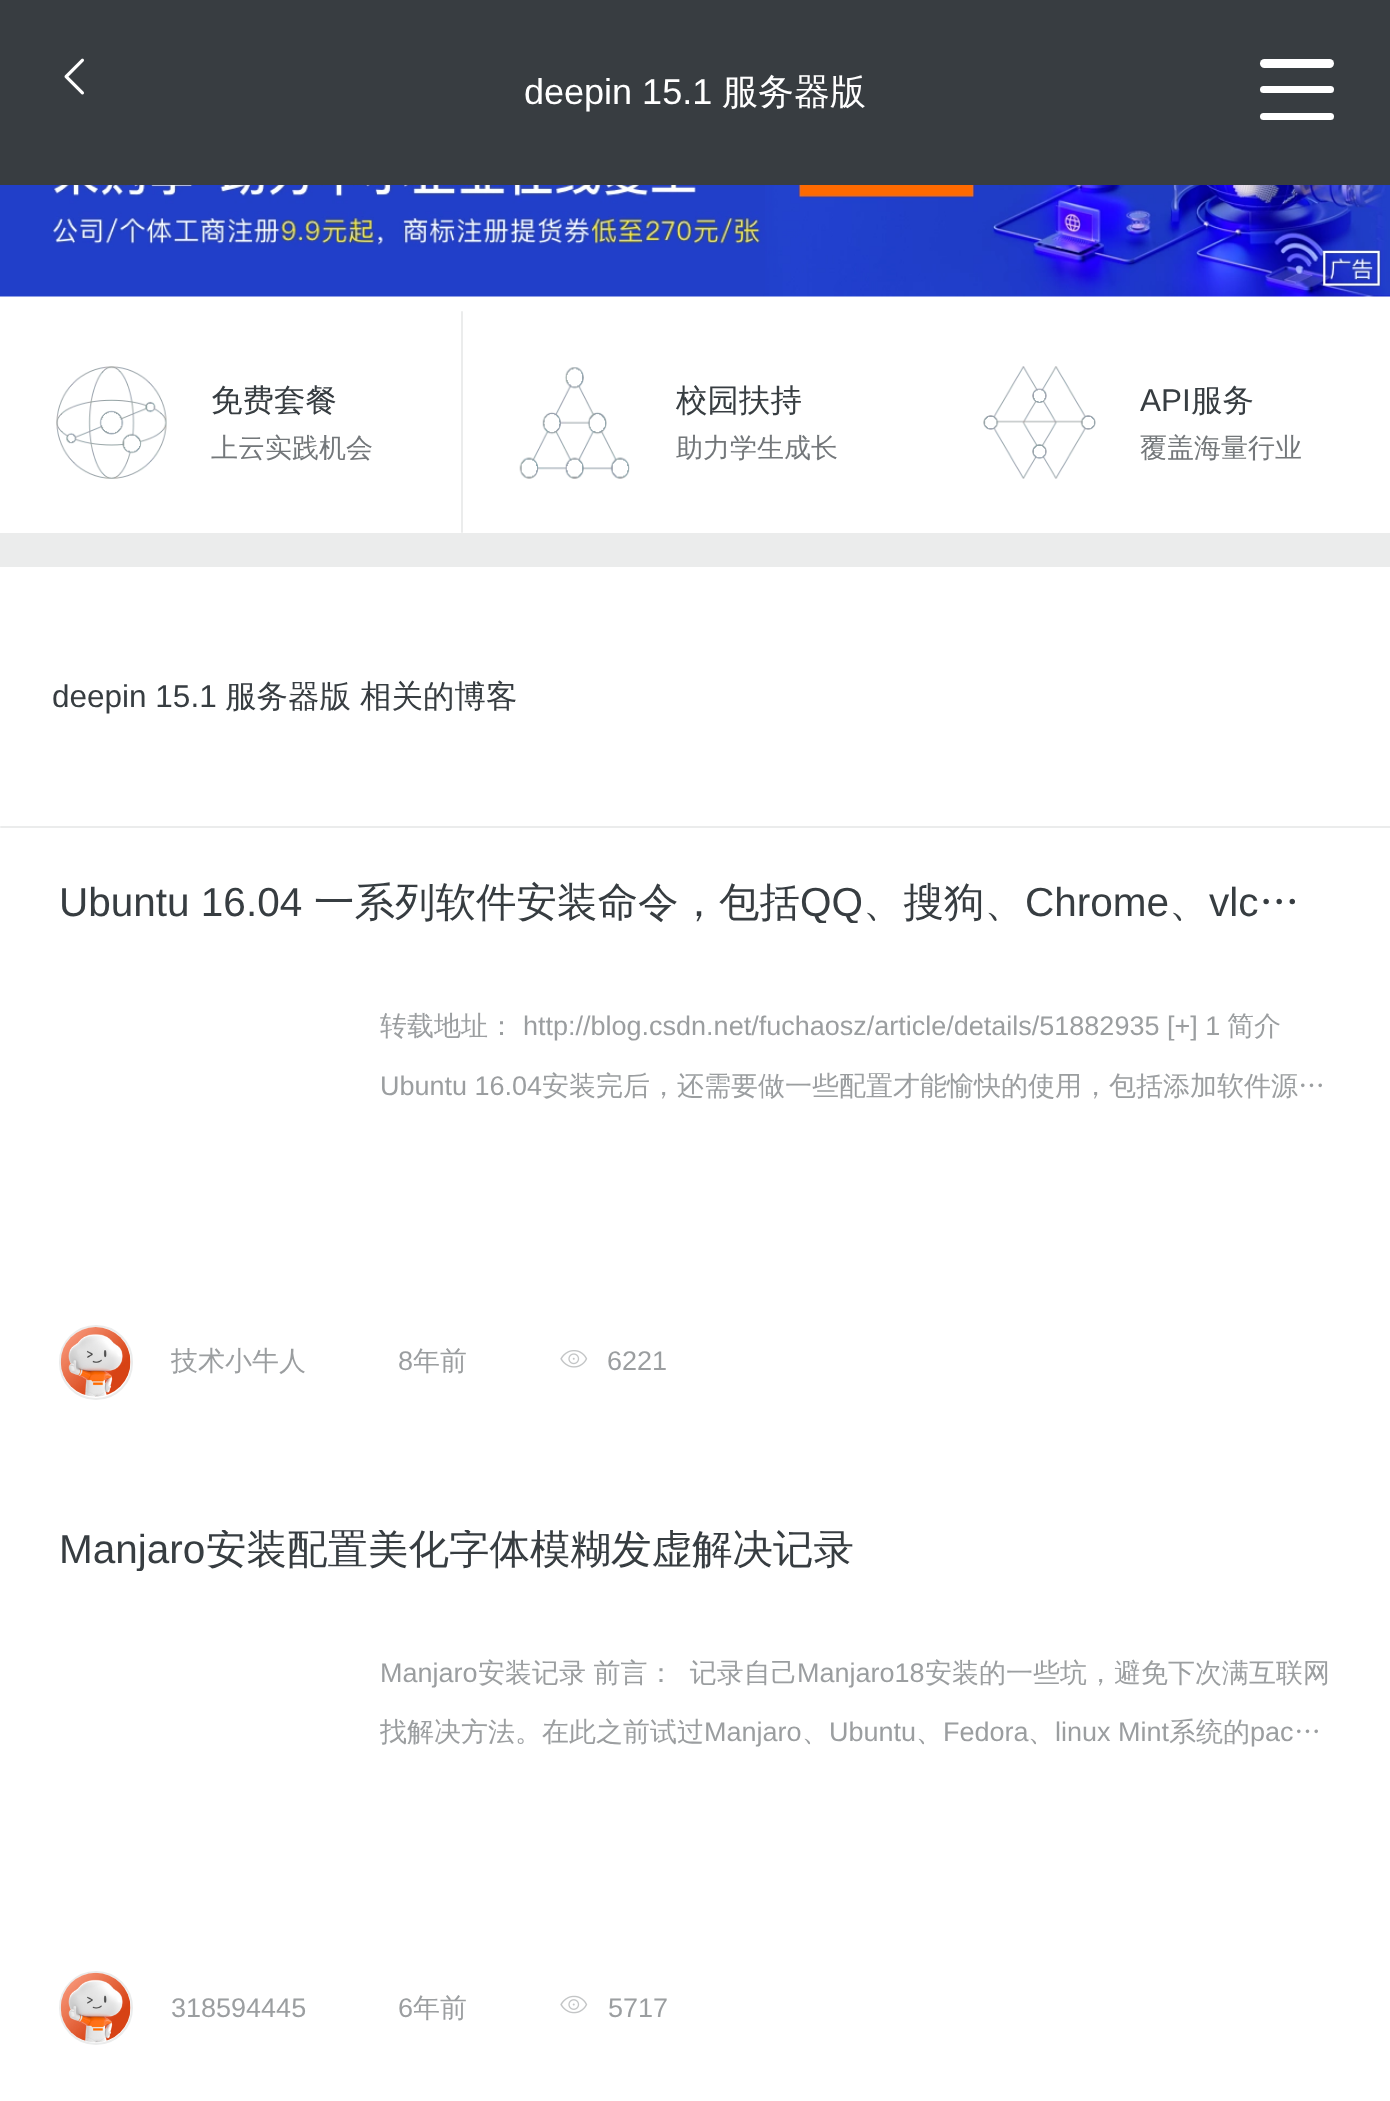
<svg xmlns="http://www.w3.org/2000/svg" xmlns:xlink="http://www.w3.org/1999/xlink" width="1390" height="2101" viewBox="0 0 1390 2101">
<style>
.cls-1{font:36px Liberation Sans;fill:#ffffff}
.cls-2{font:500 36px WenQuanYi Zen Hei;fill:#ffffff}
.cls-3{font:500 31.5px WenQuanYi Zen Hei;fill:#373d41}
.cls-4{font:500 27px WenQuanYi Zen Hei;fill:#73777a}
.cls-5{font:31.5px Liberation Sans;fill:#373d41}
.cls-6{font:40.5px Liberation Sans;fill:#373d41}
.cls-7{font:500 40.5px WenQuanYi Zen Hei;fill:#373d41}
.cls-8{font:500 27px WenQuanYi Zen Hei;fill:#9b9ea0}
.cls-9{font:27px Liberation Sans;fill:#9b9ea0}
</style>
<defs>
<clipPath id="clip1"><rect x="59" y="882" width="1273" height="41"/></clipPath>
<clipPath id="clip2"><rect x="59" y="1530" width="1273" height="41"/></clipPath>
</defs>
<rect width="100%" height="100%" fill="#ffffff"/>
<rect fill="#383d41" x="0" y="0" width="1390" height="185"/>
<image xlink:href="image0.png" x="64" y="58" width="20" height="37"/>
<rect fill="#ffffff" x="1260" y="59" width="74" height="9" rx="4.5"/>
<rect fill="#ffffff" x="1260" y="86" width="74" height="7" rx="3.5"/>
<rect fill="#ffffff" x="1260" y="113" width="74" height="7" rx="3.5"/>
<image xlink:href="image1.png" x="0" y="185" width="1390" height="112"/>
<image xlink:href="image2.png" x="56" y="366" width="111" height="113"/>
<rect fill="#ebecec" x="461" y="311" width="2" height="222" rx="1"/>
<image xlink:href="image3.png" x="519" y="367" width="111" height="112"/>
<image xlink:href="image4.png" x="983" y="366" width="113" height="113"/>
<rect fill="#ebecec" x="0" y="533" width="1390" height="34"/>
<rect fill="#ebecec" x="0" y="826" width="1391" height="2" rx="1"/>
<rect fill="none" stroke="#ebecec" stroke-width="2" x="60" y="1326" width="72" height="73" rx="36"/>
<image xlink:href="image5.png" x="60" y="1327" width="71" height="70"/>
<image xlink:href="image6.png" x="560" y="1350" width="28" height="18"/>
<circle fill="none" stroke="#ebecec" stroke-width="2" cx="96" cy="2008" r="36"/>
<image xlink:href="image7.png" x="60" y="1972" width="71" height="71"/>
<image xlink:href="image8.png" x="560" y="1995" width="28" height="19"/>
<text class="cls-1" x="524" y="104">deepin 15.1</text>
<text class="cls-2" x="722" y="104">服务器版</text>
<text class="cls-3" x="211" y="411">免费套餐</text>
<text class="cls-4" x="211" y="457">上云实践机会</text>
<text class="cls-3" x="676" y="411">校园扶持</text>
<text class="cls-4" x="676" y="457">助力学生成长</text>
<text class="cls-5" x="1140" y="411">API</text>
<text class="cls-3" x="1191" y="411">服务</text>
<text class="cls-4" x="1140" y="457">覆盖海量行业</text>
<text class="cls-5" x="52" y="707">deepin 15.1</text>
<text class="cls-3" x="225" y="707">服务器版</text>
<text class="cls-3" x="360" y="707">相关的博客</text>
<text class="cls-6" x="59" y="916">Ubuntu 16.04</text>
<text class="cls-7" x="314" y="916">一系列软件安装命令，包括</text>
<g clip-path="url(#clip1)">
<text class="cls-6" x="800" y="916">QQ</text>
</g>
<text class="cls-7" x="863" y="916">、搜狗、</text>
<text class="cls-6" x="1025" y="916">Chrome</text>
<text class="cls-6" x="1209" y="916">vlc</text>
<text class="cls-7" x="1259" y="916">…</text>
<text class="cls-7" x="1169" y="916">、</text>
<text class="cls-8" x="380" y="1035">转载地址：</text>
<text class="cls-9" x="523" y="1035">http://blog.csdn.net/fuchaosz/article/details/51882935 [+] 1</text>
<text class="cls-8" x="1227" y="1035">简介</text>
<text class="cls-9" x="380" y="1095">Ubuntu 16.04</text>
<text class="cls-8" x="542" y="1095">安装完后，还需要做一些配置才能愉快的使用，包括添加软件源…</text>
<text class="cls-8" x="171" y="1370">技术小牛人</text>
<text class="cls-9" x="398" y="1370">8</text>
<text class="cls-8" x="413" y="1370">年前</text>
<text class="cls-9" x="607" y="1370">6221</text>
<g clip-path="url(#clip2)">
<text class="cls-6" x="59" y="1563">Manjaro</text>
<text class="cls-7" x="206" y="1563">安装配置美化字体模糊发虚解决记录</text>
</g>
<text class="cls-9" x="380" y="1682">Manjaro</text>
<text class="cls-8" xml:space="preserve" x="478" y="1682" word-spacing="-0.5">安装记录 前言：  记录自己</text>
<text class="cls-9" x="797" y="1682">Manjaro18</text>
<text class="cls-8" x="925" y="1682">安装的一些坑，避免下次满互联网</text>
<text class="cls-8" x="380" y="1741">找解决方法。在此之前试过</text>
<text class="cls-9" x="704" y="1741">Manjaro</text>
<text class="cls-9" x="829" y="1741">Ubuntu</text>
<text class="cls-9" x="943" y="1741">Fedora</text>
<text class="cls-9" x="1055" y="1741">linux Mint</text>
<text class="cls-8" x="1169" y="1741">系统的</text>
<text class="cls-9" x="1250" y="1741">pac</text>
<text class="cls-8" x="1294" y="1741">…</text>
<text class="cls-8" x="802" y="1741">、</text>
<text class="cls-8" x="916" y="1741">、</text>
<text class="cls-8" x="1028" y="1741">、</text>
<text class="cls-9" x="171" y="2017">318594445</text>
<text class="cls-9" x="398" y="2017">6</text>
<text class="cls-8" x="413" y="2017">年前</text>
<text class="cls-9" x="608" y="2017">5717</text>
</svg>
